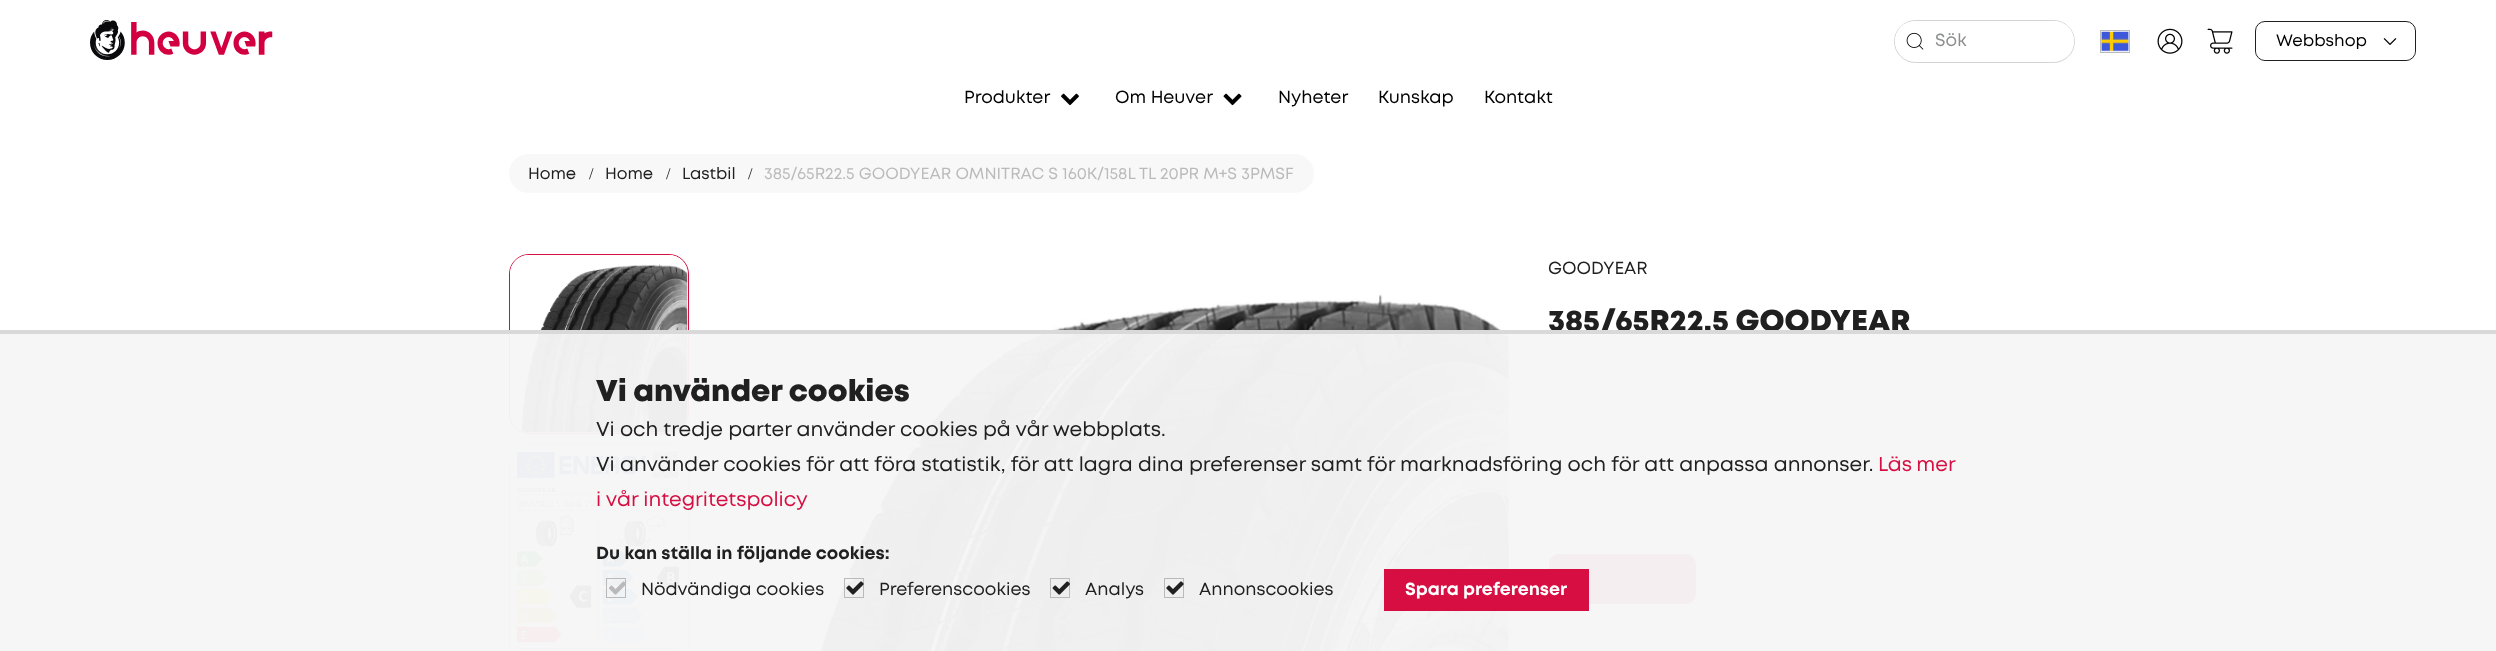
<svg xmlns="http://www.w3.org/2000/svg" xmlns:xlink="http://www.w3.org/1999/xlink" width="2496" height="651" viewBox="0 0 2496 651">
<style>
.cls-1{font:17.5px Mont;fill:#8d8e8e}
.cls-2{font:16.5px Mont;fill:#000000}
.cls-3{font:17.5px Mont;fill:#000000}
.cls-4{font:16.25px Mont;fill:#202020}
.cls-5{font:16.25px Liberation Serif;fill:#202020}
.cls-6{font:16.25px Mont;fill:#bababa}
.cls-7{font:17.5px Mont;fill:#202020}
.cls-8{font:900 30px Mont;fill:#202020}
.cls-9{font:20px Mont;fill:#202020}
.cls-10{font:20px Mont;fill:#d60e41}
.cls-11{font:bold 17.5px Mont;fill:#202020}
.cls-12{font:bold 17.5px Mont;fill:#ffffff}
</style>
<defs>
<clipPath id="clip1"><rect x="2256" y="23" width="159" height="37" rx="9"/></clipPath>
<clipPath id="clip2"><rect x="2276" y="34" width="99" height="15"/></clipPath>
</defs>
<rect width="100%" height="100%" fill="#ffffff"/>
<image xlink:href="image0.png" x="90" y="20" width="183" height="40"/>
<rect fill="none" stroke="#d3d3d3" x="1894.5" y="20.5" width="180" height="42" rx="21"/>
<circle fill="#ffffff" cx="1915" cy="41" r="20"/>
<image xlink:href="image1.png" x="1906" y="32" width="18" height="18"/>
<path fill="#ffffff" d="M1935 21H2054C2065 21 2074 30 2074 41C2074 52 2065 61 2054 61H1935Z"/>
<rect fill="none" stroke="#bababa" x="2100.5" y="30.5" width="29" height="22"/>
<image xlink:href="image2.png" x="2101" y="31" width="28" height="21"/>
<image xlink:href="image3.png" x="2157" y="28" width="26" height="26"/>
<image xlink:href="image4.png" x="2207" y="28" width="26" height="26"/>
<rect fill="none" stroke="#202020" x="2255.5" y="21.5" width="160" height="39" rx="9.5"/>
<g clip-path="url(#clip1)">
<rect fill="#ffffff" x="2256" y="23" width="159" height="37" rx="10"/>
</g>
<image xlink:href="image5.png" x="2383" y="38" width="14" height="7"/>
<image xlink:href="image6.png" x="1061" y="93" width="18" height="13"/>
<image xlink:href="image7.png" x="1223" y="93" width="19" height="13"/>
<rect fill="#f8f8f8" x="509" y="154" width="805" height="39" rx="19.5"/>
<rect fill="none" stroke="#d60e41" x="509.5" y="254.5" width="179" height="179" rx="19.5"/>
<image xlink:href="image8.png" x="510" y="255" width="178" height="178"/>
<rect fill="none" stroke="#c5c5c5" x="509.5" y="444.5" width="179" height="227" rx="19.5"/>
<image xlink:href="image9.png" x="513" y="445" width="170" height="205"/>
<image xlink:href="image10.png" x="820" y="294" width="689" height="357"/>
<rect fill="#d60e41" x="1549" y="554" width="147" height="50" rx="10"/>
<rect fill="#f6f6f6" fill-opacity="0.97" x="0" y="334" width="2496" height="317"/>
<rect fill="none" stroke="#bababa" x="606.5" y="578.5" width="19" height="19"/>
<image xlink:href="image11.png" x="609" y="581" width="16" height="14"/>
<rect fill="none" stroke="#bababa" x="844.5" y="578.5" width="19" height="19"/>
<image xlink:href="image12.png" x="846" y="581" width="18" height="14"/>
<rect fill="none" stroke="#bababa" x="1050.5" y="578.5" width="19" height="19"/>
<image xlink:href="image13.png" x="1052" y="581" width="18" height="14"/>
<rect fill="none" stroke="#bababa" x="1164.5" y="578.5" width="19" height="19"/>
<image xlink:href="image14.png" x="1166" y="581" width="18" height="14"/>
<rect fill="#d60e41" x="1384" y="569" width="205" height="42"/>
<text class="cls-1" x="1935" y="46">Sök</text>
<g clip-path="url(#clip2)">
<text class="cls-2" x="2276" y="46">Webbshop</text>
</g>
<text class="cls-3" x="964" y="103">Produkter</text>
<text class="cls-3" x="1115" y="103">Om Heuver</text>
<text class="cls-3" x="1278" y="103">Nyheter</text>
<text class="cls-3" x="1378" y="103">Kunskap</text>
<text class="cls-3" x="1484" y="103">Kontakt</text>
<text class="cls-4" x="528" y="179">Home</text>
<text class="cls-5" x="589" y="179">/</text>
<text class="cls-4" x="605" y="179">Home</text>
<text class="cls-5" x="666" y="179">/</text>
<text class="cls-4" x="682" y="179">Lastbil</text>
<text class="cls-5" x="748" y="179">/</text>
<text class="cls-6" x="764" y="179">385/65R22.5 GOODYEAR OMNITRAC S 160K/158L TL 20PR M+S 3PMSF</text>
<text class="cls-7" x="1548" y="274">GOODYEAR</text>
<text class="cls-8" x="1548" y="331">385/65R22.5 GOODYEAR</text>
<rect fill="#d9d9d9" x="0" y="330" width="2496" height="4"/>
<text class="cls-8" x="596" y="401">Vi använder cookies</text>
<text class="cls-9"><tspan x="596" y="436">Vi och tredje parter använder cookies på vår webbplats.</tspan><tspan x="596" y="471">Vi använder cookies för att föra statistik, för att lagra dina preferenser samt för marknadsföring och för att anpassa annonser.</tspan></text>
<text class="cls-10" x="1878" y="471" word-spacing="-1">Läs mer</text>
<text class="cls-10" x="596" y="506">i vår integritetspolicy</text>
<text class="cls-11" x="596" y="559">Du kan ställa in följande cookies:</text>
<text class="cls-7" x="641" y="595">Nödvändiga cookies</text>
<text class="cls-7" x="879" y="595">Preferenscookies</text>
<text class="cls-7" x="1085" y="595">Analys</text>
<text class="cls-7" x="1199" y="595">Annonscookies</text>
<text class="cls-12" x="1405" y="595">Spara preferenser</text>
</svg>
